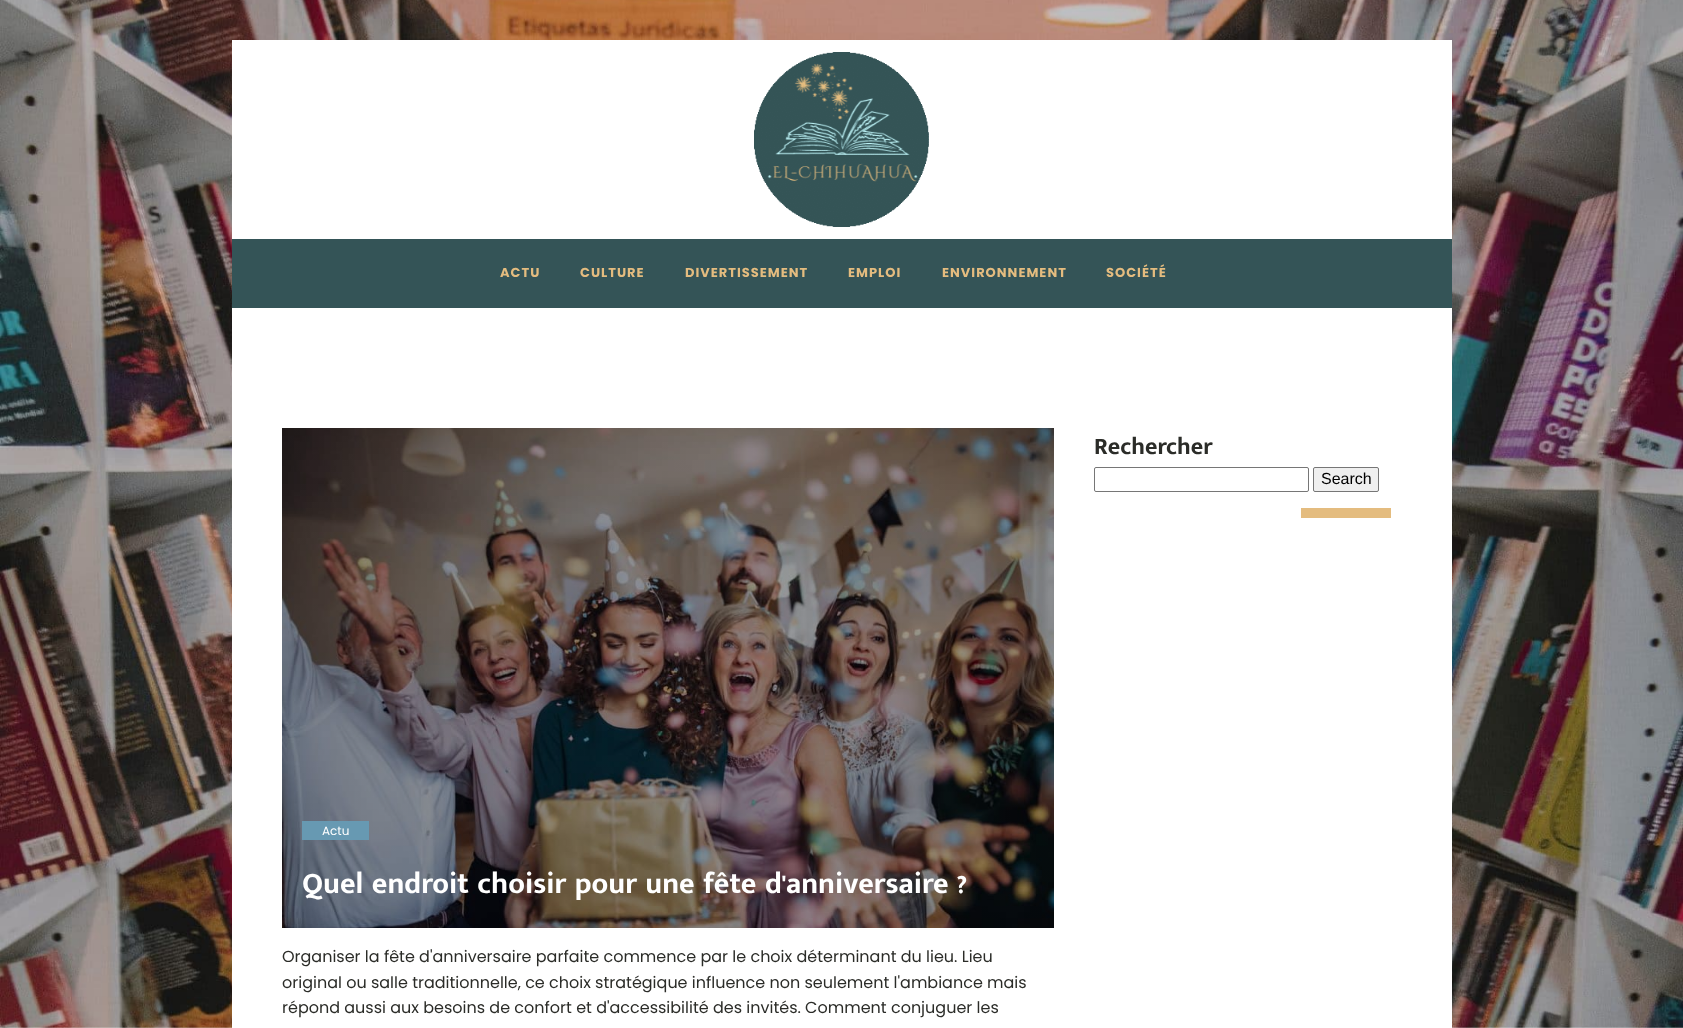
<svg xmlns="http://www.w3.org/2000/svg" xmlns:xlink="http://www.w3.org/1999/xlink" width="1683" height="1028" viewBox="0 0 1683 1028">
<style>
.cls-1{font:bold 13px Poppins;letter-spacing:1px;fill:#e4bc7f}
.cls-2{font:bold 24px Mukta Malar;fill:#2b2c28}
.cls-3{font:16px Liberation Sans;fill:#000000}
.cls-4{font:12px Poppins;fill:#ffffff}
.cls-5{font:bold 30px Mukta Malar;fill:#ffffff}
.cls-6{font:16px Poppins;fill:#2b2c28}
</style>
<rect width="100%" height="100%" fill="#ffffff"/>
<image xlink:href="image0.png" x="0" y="0" width="1683" height="1028"/>
<rect fill="#ffffff" x="232" y="40" width="1220" height="988"/>
<image xlink:href="image1.png" x="754" y="52" width="175" height="175"/>
<rect fill="#345457" x="232" y="239" width="1220" height="69"/>
<rect fill="#e4bc7f" x="1301" y="508" width="90" height="10"/>
<rect fill="none" stroke="#767676" x="1094.5" y="467.5" width="214" height="24" rx="1.5"/>
<rect fill="#efefef" stroke="#767676" x="1313.5" y="467.5" width="65" height="24" rx="1.5"/>
<image xlink:href="image2.png" x="282" y="428" width="772" height="500"/>
<rect fill="#6799b2" x="302" y="821" width="67" height="19"/>
<text class="cls-1" x="500" y="277">ACTU</text>
<text class="cls-1" x="580" y="277">CULTURE</text>
<text class="cls-1" x="685" y="277">DIVERTISSEMENT</text>
<text class="cls-1" x="848" y="277">EMPLOI</text>
<text class="cls-1" x="942" y="277">ENVIRONNEMENT</text>
<text class="cls-1" x="1106" y="277">SOCIÉTÉ</text>
<text class="cls-2" x="1094" y="454">Rechercher</text>
<text class="cls-3" x="1321" y="484">Search</text>
<text class="cls-4" x="322" y="835">Actu</text>
<text class="cls-5" x="302" y="893">Quel endroit choisir pour une fête d'anniversaire ?</text>
<text class="cls-6"><tspan x="282" y="962">Organiser la fête d'anniversaire parfaite commence par le choix déterminant du lieu. Lieu</tspan><tspan x="282" y="988">original ou salle traditionnelle, ce choix stratégique influence non seulement l'ambiance mais</tspan><tspan x="282" y="1013">répond aussi aux besoins de confort et d'accessibilité des invités. Comment conjuguer les</tspan></text>
</svg>
